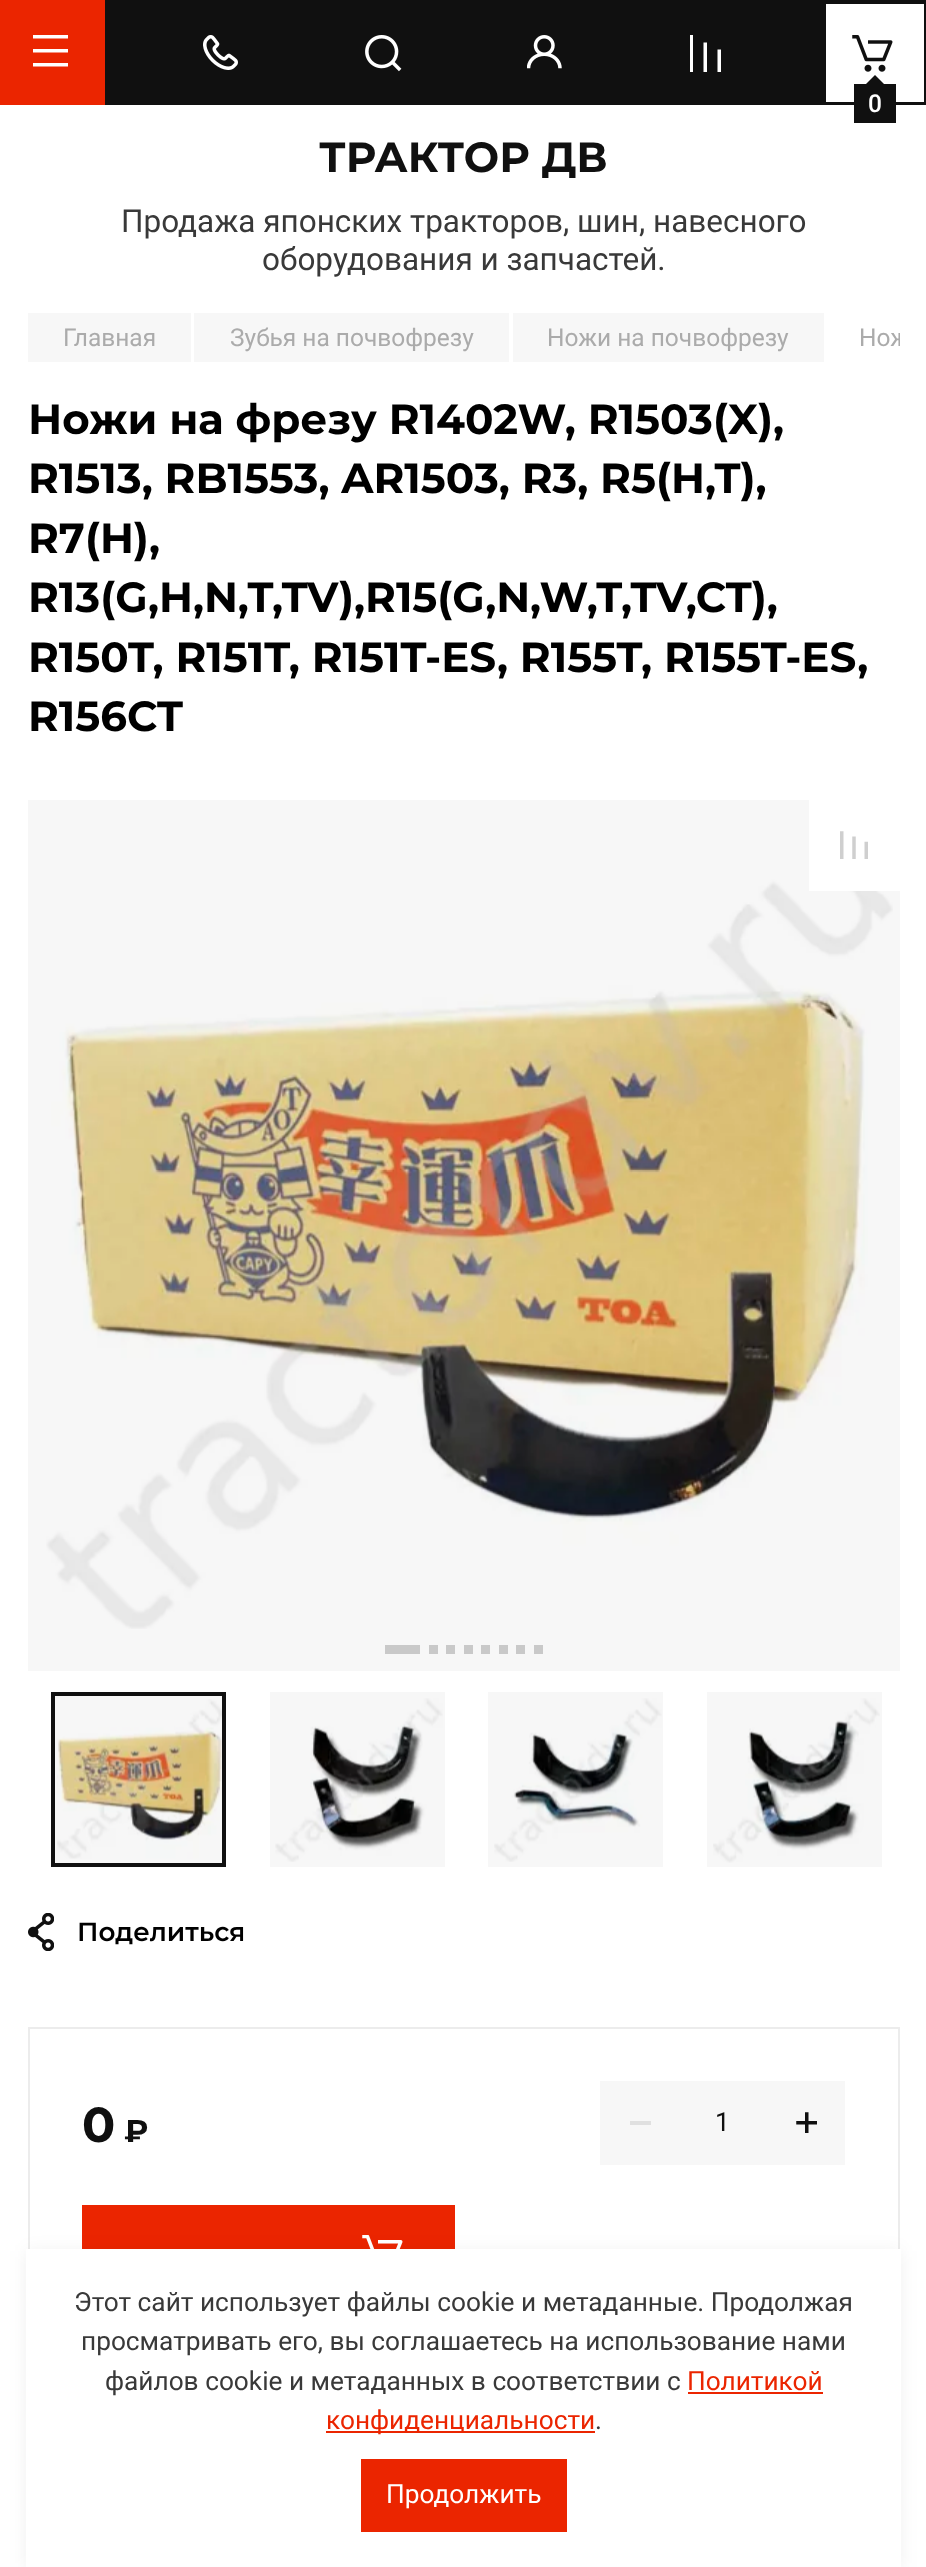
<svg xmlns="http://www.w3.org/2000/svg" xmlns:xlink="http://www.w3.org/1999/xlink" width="926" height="2567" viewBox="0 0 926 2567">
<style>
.cls-1{font:500 24.5px Roboto;fill:#ffffff}
.cls-2{font:bold 42px Montserrat;fill:#101010}
.cls-3{font:31.5px Roboto;fill:#393939}
.cls-4{font:24.5px Roboto;fill:#ababab}
.cls-5{font:bold 42px Montserrat;fill:#000000}
.cls-6{font:600 26.25px Montserrat;fill:#000000}
.cls-7{font:bold 49px Montserrat;fill:#101010}
.cls-8{font:bold 31.5px Montserrat;fill:#101010}
.cls-9{font:26.25px Roboto;fill:#101010}
.cls-10{font:26.25px Roboto;fill:#393939}
.cls-11{font:26.25px Roboto;fill:#eb2500}
.cls-12{font:26.25px Roboto;fill:#ffffff}
</style>
<defs>
<clipPath id="clip1"><rect x="690" y="35" width="31" height="37"/></clipPath>
<clipPath id="clip2"><rect x="28" y="313" width="872" height="49"/></clipPath>
</defs>
<rect width="100%" height="100%" fill="#ffffff"/>
<rect fill="#101010" x="105" y="0" width="821" height="105"/>
<rect fill="#eb2500" x="0" y="0" width="105" height="105"/>
<path fill="#ffffff" d="M33 35H68V38.5H33ZM33 49H68V52.5H33ZM68 63H33V66.5H68Z"/>
<image xlink:href="image0.png" x="203" y="35" width="35" height="35"/>
<image xlink:href="image1.png" x="365" y="35" width="37" height="37"/>
<image xlink:href="image2.png" x="527" y="35" width="35" height="34"/>
<g clip-path="url(#clip1)">
<path fill="#ffffff" d="M721 72V49.5H717.5V72ZM707 42.5V72H703.5V42.5ZM693 35V72H689.5V35Z"/>
</g>
<rect fill="#ffffff" x="826" y="4" width="98" height="98"/>
<image xlink:href="image3.png" x="852" y="35" width="41" height="37"/>
<rect fill="#101010" x="854" y="84" width="42" height="39"/>
<path fill="#101010" d="M884 84H866L875 75Z"/>
<rect fill="#f7f7f7" x="28" y="313" width="163" height="49"/>
<rect fill="#f7f7f7" x="194" y="313" width="315" height="49"/>
<rect fill="#f7f7f7" x="513" y="313" width="311" height="49"/>
<image xlink:href="image4.png" x="46" y="834" width="847" height="795"/>
<rect fill="#000000" fill-opacity="0.03" x="28" y="800" width="872" height="871"/>
<rect fill="#c9c9c9" x="385" y="1645" width="35" height="9"/>
<rect fill="#c9c9c9" x="429" y="1645" width="9" height="9"/>
<rect fill="#c9c9c9" x="446" y="1645" width="9" height="9"/>
<rect fill="#c9c9c9" x="464" y="1645" width="9" height="9"/>
<rect fill="#c9c9c9" x="481" y="1645" width="9" height="9"/>
<rect fill="#c9c9c9" x="499" y="1645" width="9" height="9"/>
<rect fill="#c9c9c9" x="516" y="1645" width="9" height="9"/>
<rect fill="#c9c9c9" x="534" y="1645" width="9" height="9"/>
<rect fill="#ffffff" x="809" y="800" width="91" height="91"/>
<image xlink:href="image5.png" x="840" y="831" width="28" height="28"/>
<image xlink:href="image6.png" x="57" y="1699" width="165" height="160"/>
<rect fill="none" stroke="#101010" stroke-width="4" x="53" y="1694" width="171" height="171"/>
<rect fill="#000000" fill-opacity="0.03" x="55" y="1696" width="167" height="167"/>
<image xlink:href="image7.png" x="275" y="1698" width="168" height="164"/>
<rect fill="#000000" fill-opacity="0.03" x="270" y="1692" width="175" height="175"/>
<image xlink:href="image8.png" x="494" y="1698" width="168" height="164"/>
<rect fill="#000000" fill-opacity="0.03" x="488" y="1692" width="175" height="175"/>
<image xlink:href="image9.png" x="713" y="1698" width="167" height="165"/>
<rect fill="#000000" fill-opacity="0.03" x="707" y="1692" width="175" height="175"/>
<image xlink:href="image10.png" x="28" y="1913" width="26" height="38"/>
<rect fill="none" stroke="#ececec" stroke-width="2" x="29" y="2028" width="870" height="433"/>
<rect fill="#f7f7f7" x="600" y="2081" width="245" height="84"/>
<rect fill="#e0e0e0" x="630" y="2121" width="21" height="4"/>
<image xlink:href="image11.png" x="796" y="2112" width="21" height="21"/>
<rect fill="#eb2500" x="82" y="2205" width="373" height="44"/>
<image xlink:href="image12.png" x="362" y="2235" width="41" height="14"/>
<rect fill="#000000" fill-opacity="0.06" filter="blur(9px)" x="26" y="2251" width="875" height="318"/>
<rect fill="#ffffff" x="26" y="2249" width="875" height="318"/>
<rect fill="#eb2500" x="688" y="2392" width="135" height="2"/>
<rect fill="#eb2500" x="326" y="2431" width="269" height="2"/>
<rect fill="#eb2500" x="361" y="2459" width="206" height="73"/>
<text class="cls-1" x="868" y="112">0</text>
<text class="cls-2" x="319" y="172">ТРАКТОР ДВ</text>
<text class="cls-3" x="121" y="232">Продажа японских тракторов, шин, навесного</text>
<text class="cls-3" x="262" y="270">оборудования и запчастей.</text>
<text class="cls-4" x="63" y="346">Главная</text>
<text class="cls-4" x="230" y="346">Зубья на почвофрезу</text>
<text class="cls-4" x="547" y="346">Ножи на почвофрезу</text>
<g clip-path="url(#clip2)">
<text class="cls-4" x="859" y="346">Нож</text>
</g>
<text class="cls-5"><tspan x="28" y="434">Ножи на фрезу R1402W, R1503(X),</tspan><tspan x="28" y="493">R1513, RB1553, AR1503, R3, R5(H,T),</tspan><tspan x="28" y="553">R7(H),</tspan><tspan x="28" y="612">R13(G,H,N,T,TV),R15(G,N,W,T,TV,CT),</tspan><tspan x="28" y="672">R150T, R151T, R151T-ES, R155T, R155T-ES,</tspan><tspan x="28" y="731">R156CT</tspan></text>
<text class="cls-6" x="77" y="1941">Поделиться</text>
<text class="cls-7" x="82" y="2142">0</text>
<text class="cls-8" x="124" y="2142">₽</text>
<text class="cls-9" x="715" y="2131">1</text>
<text class="cls-10" x="74" y="2311">Этот сайт использует файлы cookie и метаданные. Продолжая</text>
<text class="cls-10" x="81" y="2350">просматривать его, вы соглашаетесь на использование нами</text>
<text class="cls-10" x="105" y="2390">файлов cookie и метаданных в соответствии с</text>
<text class="cls-11" x="687" y="2390">Политикой</text>
<text class="cls-11" x="326" y="2429">конфиденциальности</text>
<text class="cls-10" x="595" y="2429">.</text>
<text class="cls-12" x="386" y="2503">Продолжить</text>
</svg>
